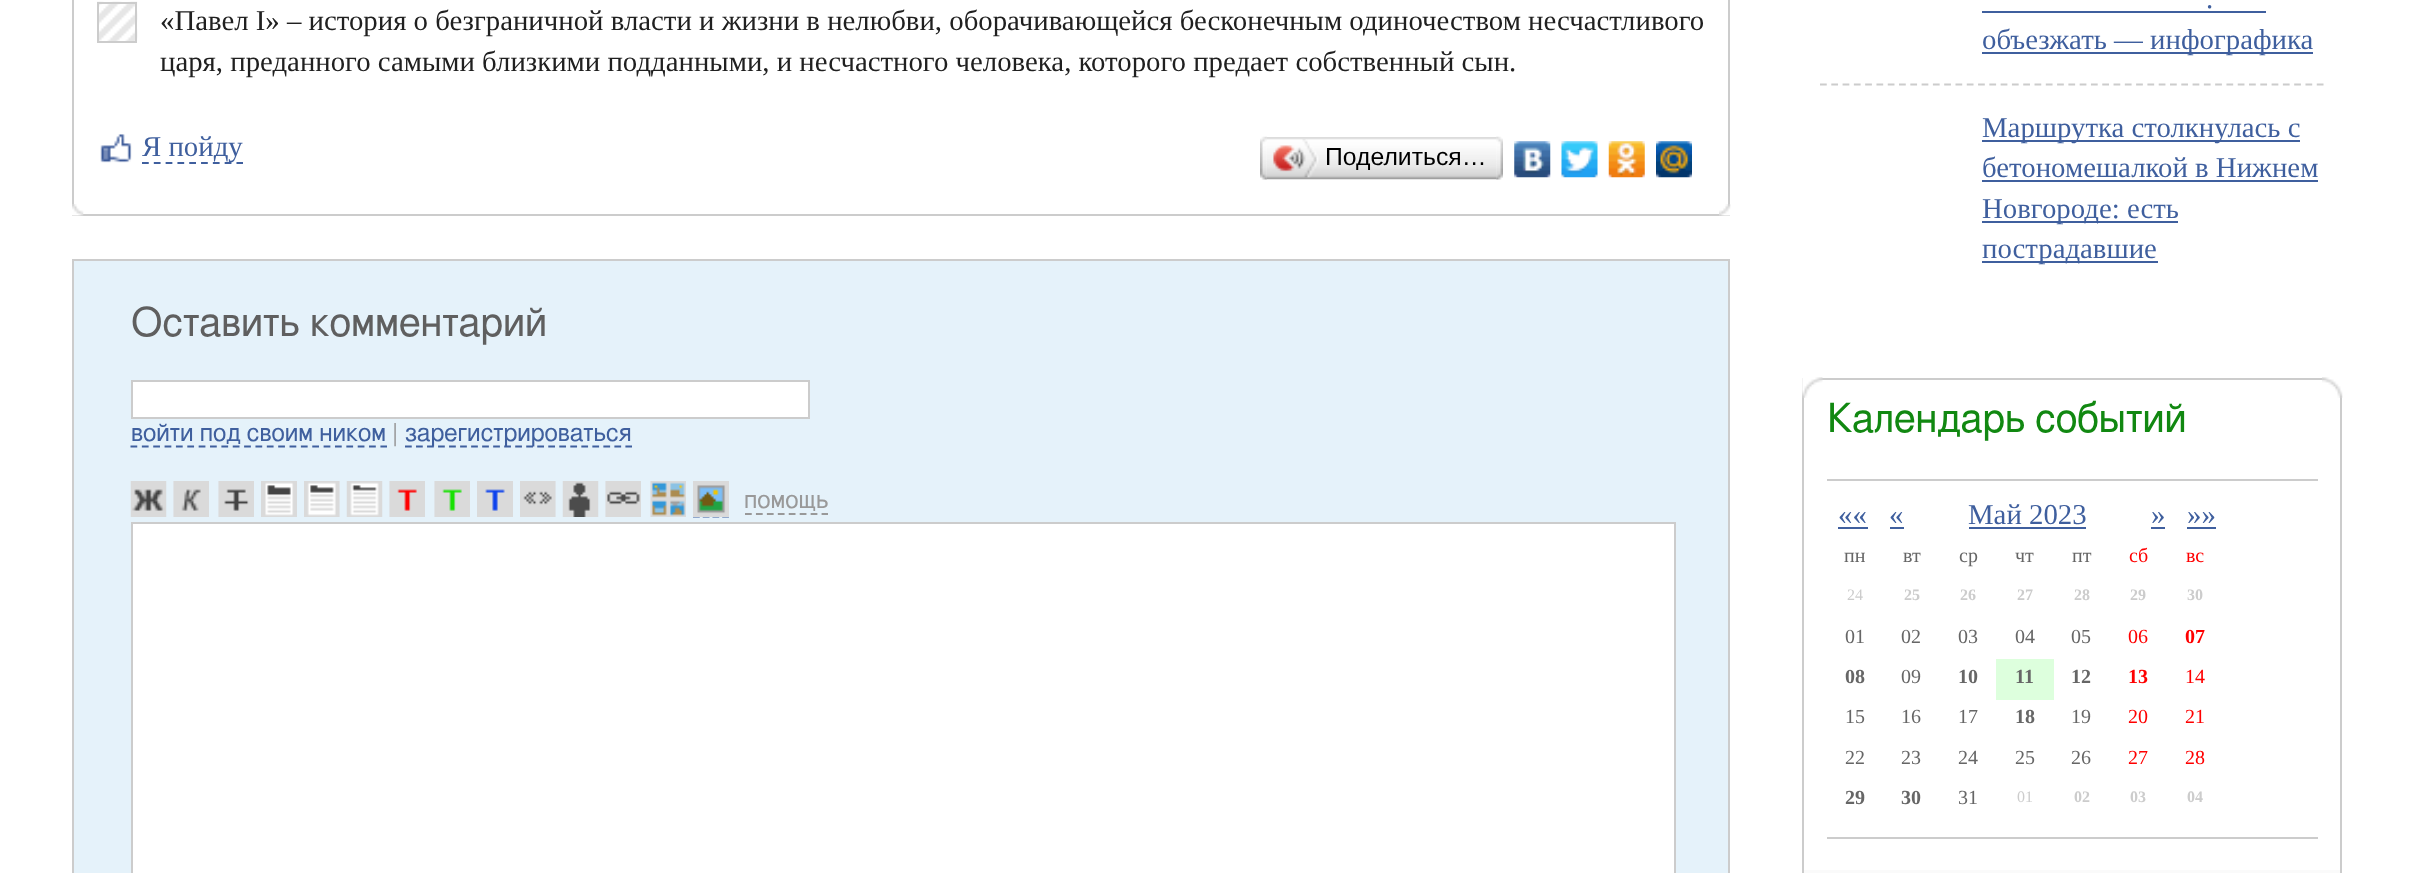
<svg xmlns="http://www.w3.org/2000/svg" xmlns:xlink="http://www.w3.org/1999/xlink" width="2414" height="873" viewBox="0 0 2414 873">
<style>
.cls-1{font:28.8px Liberation Serif;fill:#202020}
.cls-2{font:28.8px Liberation Serif;fill:#3f5f9e}
.cls-3{font:24.75px Liberation Sans;fill:#000000}
.cls-4{font:40.25px FreeSans;fill:#5f5f5f}
.cls-5{font:24.75px FreeSans;fill:#3f5f9e}
.cls-6{font:24.75px FreeSans;fill:#999999}
.cls-7{font:40.25px FreeSans;fill:#118811}
.cls-8{font:20px Liberation Serif;fill:#666666}
.cls-9{font:20px Liberation Serif;fill:#ff0000}
.cls-10{font:16px Liberation Serif;fill:#cccccc}
.cls-11{font:bold 16px Liberation Serif;fill:#cccccc}
.cls-12{font:bold 20px Liberation Serif;fill:#ff0000}
.cls-13{font:bold 20px Liberation Serif;fill:#666666}
</style>
<rect width="100%" height="100%" fill="#ffffff"/>
<rect fill="none" stroke="#cccccc" stroke-width="2" x="73" y="-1" width="1656" height="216"/>
<image xlink:href="image0.png" x="97" y="1" width="41" height="42"/>
<rect fill="none" stroke="#cccccc" stroke-width="2" x="98" y="3" width="38" height="39"/>
<image xlink:href="image1.png" x="100" y="134" width="32" height="29"/>
<path fill="none" stroke="#3f5f9e" stroke-width="2.2" stroke-dasharray="6.75 5.06" d="M142 163H243"/>
<image xlink:href="image2.png" x="1266" y="137" width="231" height="43"/>
<image xlink:href="image3.png" x="1260" y="136" width="7" height="44"/>
<image xlink:href="image4.png" x="1273" y="139" width="46" height="39"/>
<image xlink:href="image5.png" x="1496" y="136" width="7" height="44"/>
<image xlink:href="image6.png" x="1514" y="141" width="37" height="37"/>
<image xlink:href="image7.png" x="1561" y="141" width="37" height="37"/>
<image xlink:href="image8.png" x="1608" y="141" width="37" height="37"/>
<image xlink:href="image9.png" x="1656" y="141" width="36" height="37"/>
<image xlink:href="image10.png" x="72" y="204" width="12" height="12"/>
<image xlink:href="image11.png" x="1719" y="204" width="12" height="12"/>
<rect fill="#e5f2fa" stroke="#cccccc" stroke-width="2" x="73" y="260" width="1656" height="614"/>
<rect fill="#ffffff" stroke="#cccccc" stroke-width="2" x="132" y="381" width="677" height="37"/>
<path fill="none" stroke="#3f5f9e" stroke-width="2.2" stroke-dasharray="6.75 4.61" d="M130.5 446.5H387"/>
<path fill="none" stroke="#3f5f9e" stroke-width="2.2" stroke-dasharray="6.75 4.27" d="M405 446.5H632"/>
<image xlink:href="image12.png" x="130" y="481" width="37" height="36"/>
<image xlink:href="image13.png" x="173" y="481" width="36" height="36"/>
<image xlink:href="image14.png" x="218" y="481" width="36" height="36"/>
<image xlink:href="image15.png" x="261" y="481" width="36" height="36"/>
<image xlink:href="image16.png" x="304" y="481" width="36" height="36"/>
<image xlink:href="image17.png" x="346" y="481" width="37" height="36"/>
<image xlink:href="image18.png" x="389" y="481" width="36" height="36"/>
<image xlink:href="image19.png" x="434" y="481" width="36" height="36"/>
<image xlink:href="image20.png" x="477" y="481" width="36" height="36"/>
<image xlink:href="image21.png" x="520" y="481" width="36" height="36"/>
<image xlink:href="image22.png" x="562" y="481" width="37" height="36"/>
<image xlink:href="image23.png" x="605" y="481" width="36" height="36"/>
<image xlink:href="image24.png" x="650" y="481" width="36" height="36"/>
<path fill="none" stroke="#3f5f9e" stroke-width="2.2" stroke-dasharray="6.75 2.99" d="M693 516.5H729"/>
<image xlink:href="image25.png" x="693" y="481" width="36" height="36"/>
<path fill="none" stroke="#999999" stroke-width="2.2" stroke-dasharray="6.75 4.19" d="M745 514H828"/>
<rect fill="#ffffff" stroke="#cccccc" stroke-width="2" x="132" y="523" width="1543" height="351"/>
<rect fill="#3f5f9e" x="1982" y="11" width="284" height="2"/>
<rect fill="#3f5f9e" x="1982" y="52" width="331" height="2"/>
<path fill="none" stroke="#cccccc" stroke-width="2.2" stroke-dasharray="6.75 4.54" d="M1820 84.5H2324"/>
<rect fill="#3f5f9e" x="1982" y="140" width="318" height="2"/>
<rect fill="#3f5f9e" x="1982" y="180" width="336" height="2"/>
<rect fill="#3f5f9e" x="1982" y="221" width="196" height="2"/>
<rect fill="#3f5f9e" x="1982" y="261" width="176" height="2"/>
<rect fill="#fafafa" x="1803" y="870" width="539" height="3"/>
<rect fill="none" stroke="#cccccc" stroke-width="2" x="1803" y="379" width="538" height="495"/>
<image xlink:href="image26.png" x="1802" y="377" width="21" height="21"/>
<image xlink:href="image27.png" x="2322" y="377" width="21" height="21"/>
<rect fill="#cccccc" x="1827" y="479" width="491" height="2"/>
<rect fill="#3f5f9e" x="1838" y="527" width="30" height="2"/>
<rect fill="#3f5f9e" x="1890" y="527" width="14" height="2"/>
<rect fill="#3f5f9e" x="1969" y="527" width="117" height="2"/>
<rect fill="#3f5f9e" x="2151" y="527" width="14" height="2"/>
<rect fill="#3f5f9e" x="2187" y="527" width="29" height="2"/>
<rect fill="#ddffdd" x="1996" y="659" width="58" height="41"/>
<rect fill="#cccccc" x="1827" y="837" width="491" height="2"/>
<text class="cls-1"><tspan x="160" y="30">«Павел I» – история о безграничной власти и жизни в нелюбви, оборачивающейся бесконечным одиночеством несчастливого</tspan><tspan x="160" y="71">царя, преданного самыми близкими подданными, и несчастного человека, которого предает собственный сын.</tspan></text>
<text class="cls-2" x="142" y="156">Я пойду</text>
<text class="cls-3" x="1325" y="165">Поделиться…</text>
<text class="cls-4" x="131" y="336">Оставить комментарий</text>
<text class="cls-5" x="131" y="441">войти под своим ником</text>
<text class="cls-6" x="392" y="441">|</text>
<text class="cls-5" x="405" y="441">зарегистрироваться</text>
<text class="cls-6" x="744" y="508">помощь</text>
<text class="cls-2" x="2206" y="8">.</text>
<text class="cls-2" x="1982" y="49">объезжать — инфографика</text>
<text class="cls-2"><tspan x="1982" y="137">Маршрутка столкнулась с</tspan><tspan x="1982" y="177">бетономешалкой в Нижнем</tspan><tspan x="1982" y="218">Новгороде: есть</tspan><tspan x="1982" y="258">пострадавшие</tspan></text>
<text class="cls-7" x="1827" y="432">Календарь событий</text>
<text class="cls-2" x="1838" y="524">««</text>
<text class="cls-2" x="1889" y="524">«</text>
<text class="cls-2" x="1968" y="524">Май 2023</text>
<text class="cls-2" x="2151" y="524">»</text>
<text class="cls-2" x="2187" y="524">»»</text>
<text class="cls-8" x="1844" y="562">пн</text>
<text class="cls-8" x="1903" y="562">вт</text>
<text class="cls-8" x="1959" y="562">ср</text>
<text class="cls-8" x="2015" y="562">чт</text>
<text class="cls-8" x="2072" y="562">пт</text>
<text class="cls-9" x="2129" y="562">сб</text>
<text class="cls-9" x="2186" y="562">вс</text>
<text class="cls-10" x="1847" y="600">24</text>
<text class="cls-11" x="1904" y="600">25</text>
<text class="cls-11" x="1960" y="600">26</text>
<text class="cls-11" x="2017" y="600">27</text>
<text class="cls-11" x="2074" y="600">28</text>
<text class="cls-11" x="2130" y="600">29</text>
<text class="cls-11" x="2187" y="600">30</text>
<text class="cls-8" x="1845" y="643">01</text>
<text class="cls-8" x="1901" y="643">02</text>
<text class="cls-8" x="1958" y="643">03</text>
<text class="cls-8" x="2015" y="643">04</text>
<text class="cls-8" x="2071" y="643">05</text>
<text class="cls-9" x="2128" y="643">06</text>
<text class="cls-12" x="2185" y="643">07</text>
<text class="cls-13" x="1845" y="683">08</text>
<text class="cls-8" x="1901" y="683">09</text>
<text class="cls-13" x="1958" y="683">10</text>
<text class="cls-13" x="2015" y="683">11</text>
<text class="cls-13" x="2071" y="683">12</text>
<text class="cls-12" x="2128" y="683">13</text>
<text class="cls-9" x="2185" y="683">14</text>
<text class="cls-8" x="1845" y="723">15</text>
<text class="cls-8" x="1901" y="723">16</text>
<text class="cls-8" x="1958" y="723">17</text>
<text class="cls-13" x="2015" y="723">18</text>
<text class="cls-8" x="2071" y="723">19</text>
<text class="cls-9" x="2128" y="723">20</text>
<text class="cls-9" x="2185" y="723">21</text>
<text class="cls-8" x="1845" y="764">22</text>
<text class="cls-8" x="1901" y="764">23</text>
<text class="cls-8" x="1958" y="764">24</text>
<text class="cls-8" x="2015" y="764">25</text>
<text class="cls-8" x="2071" y="764">26</text>
<text class="cls-9" x="2128" y="764">27</text>
<text class="cls-9" x="2185" y="764">28</text>
<text class="cls-13" x="1845" y="804">29</text>
<text class="cls-13" x="1901" y="804">30</text>
<text class="cls-8" x="1958" y="804">31</text>
<text class="cls-10" x="2017" y="802">01</text>
<text class="cls-11" x="2074" y="802">02</text>
<text class="cls-11" x="2130" y="802">03</text>
<text class="cls-11" x="2187" y="802">04</text>
</svg>
